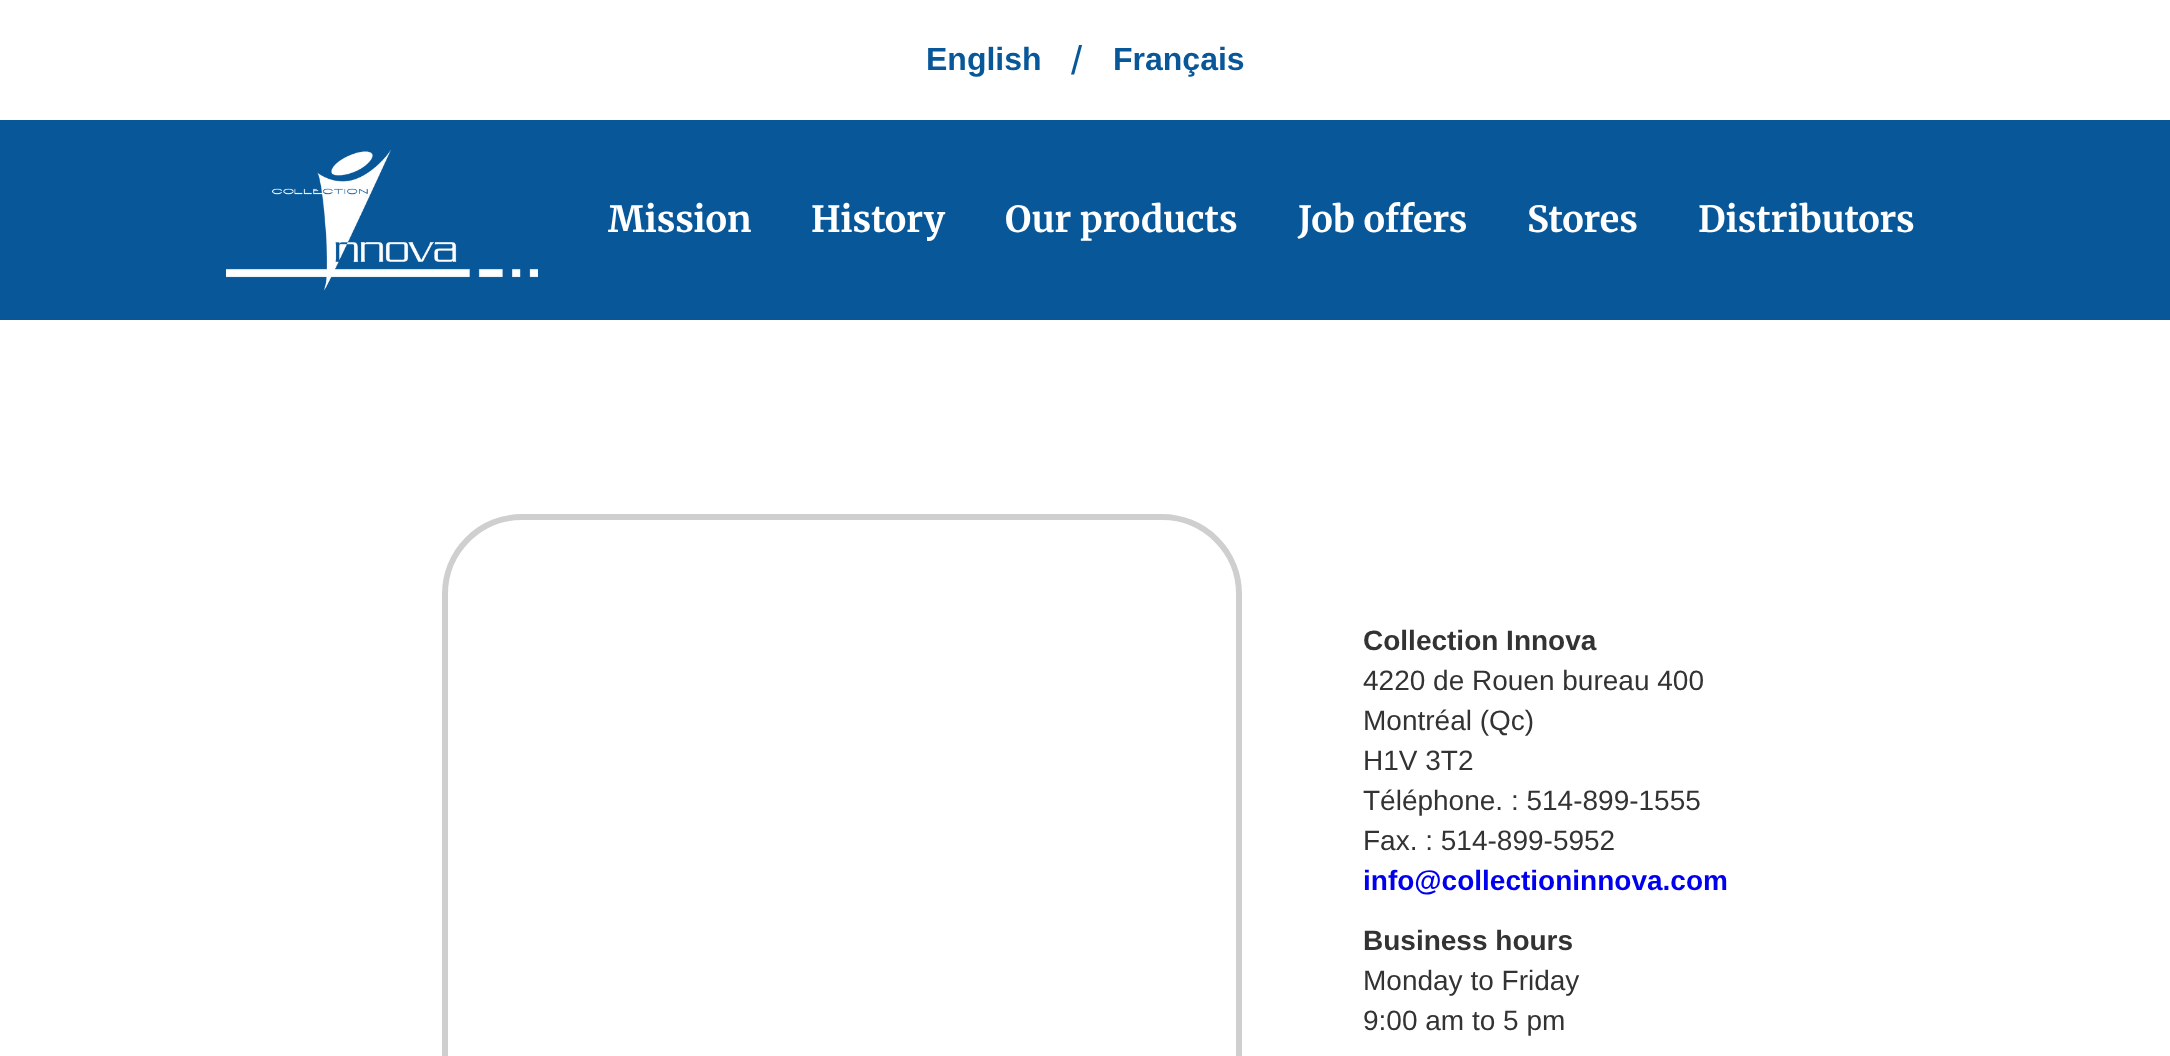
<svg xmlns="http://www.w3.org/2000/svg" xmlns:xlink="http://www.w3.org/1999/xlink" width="2170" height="1056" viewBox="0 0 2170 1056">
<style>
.cls-1{font:bold 32px Liberation Sans;fill:#085799}
.cls-2{font:40px Liberation Sans;fill:#085799}
.cls-3{font:bold 36px Merriweather;fill:#ffffff}
.cls-4{font:bold 28px Liberation Sans;fill:#333333}
.cls-5{font:28px Liberation Sans;fill:#333333}
.cls-6{font:bold 28px Liberation Sans;fill:#0000ee}
</style>
<rect width="100%" height="100%" fill="#ffffff"/>
<rect fill="#085799" x="0" y="120" width="2170" height="200"/>
<image xlink:href="image0.png" x="226" y="150" width="312" height="140"/>
<rect fill="none" stroke="#cfcfcf" stroke-width="6" x="445" y="517" width="794" height="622" rx="77"/>
<text class="cls-1" x="926" y="70">English</text>
<text class="cls-2" x="1071" y="74">/</text>
<text class="cls-1" x="1113" y="70">Français</text>
<text class="cls-3" x="608" y="232">Mission</text>
<text class="cls-3" x="811" y="232">History</text>
<text class="cls-3" x="1005" y="232">Our products</text>
<text class="cls-3" x="1298" y="232">Job offers</text>
<text class="cls-3" x="1527" y="232">Stores</text>
<text class="cls-3" x="1698" y="232">Distributors</text>
<text class="cls-4" x="1363" y="650">Collection Innova</text>
<text class="cls-5"><tspan x="1363" y="690">4220 de Rouen bureau 400</tspan><tspan x="1363" y="730">Montréal (Qc)</tspan><tspan x="1363" y="770">H1V 3T2</tspan><tspan x="1363" y="810">Téléphone. : 514-899-1555</tspan><tspan x="1363" y="850">Fax. : 514-899-5952</tspan></text>
<text class="cls-6" x="1363" y="890">info@collectioninnova.com</text>
<text class="cls-4" x="1363" y="950">Business hours</text>
<text class="cls-5"><tspan x="1363" y="990">Monday to Friday</tspan><tspan x="1363" y="1030">9:00 am to 5 pm</tspan></text>
</svg>
